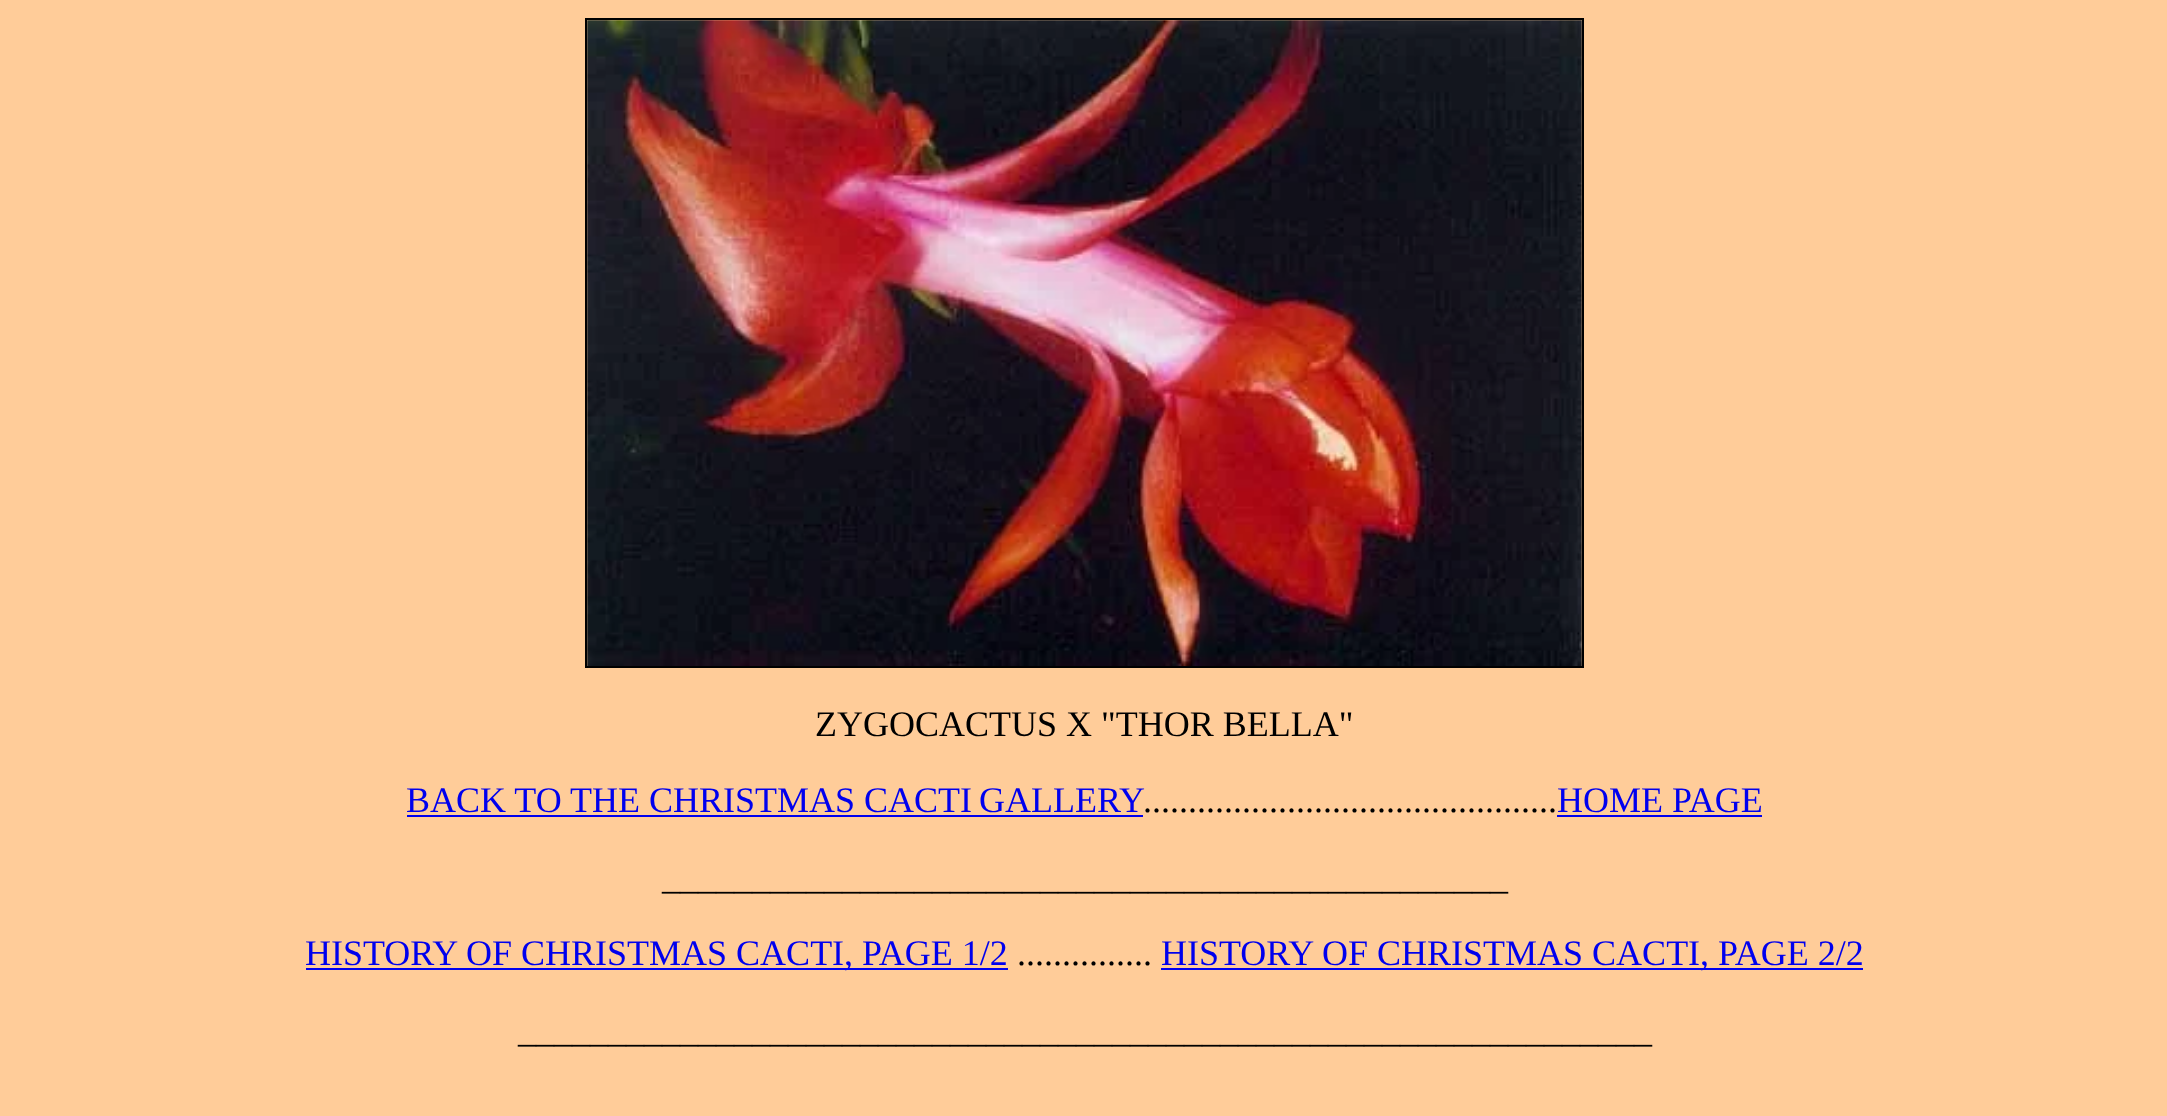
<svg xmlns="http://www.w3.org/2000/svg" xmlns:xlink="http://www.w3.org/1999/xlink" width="2167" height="1116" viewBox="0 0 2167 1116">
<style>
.cls-1{font:36px Liberation Serif;fill:#000000}
.cls-2{font:36px Liberation Serif;fill:#0000ee}
</style>
<rect width="100%" height="100%" fill="#ffcc99"/>
<rect fill="none" stroke="#000000" stroke-width="2" x="586" y="19" width="997" height="648"/>
<image xlink:href="image0.png" x="587" y="20" width="995" height="646"/>
<rect fill="#0000ee" x="407" y="815" width="736" height="2"/>
<rect fill="#0000ee" x="1557" y="815" width="205" height="2"/>
<rect fill="#0000ee" x="306" y="968" width="702" height="2"/>
<rect fill="#0000ee" x="1161" y="968" width="702" height="2"/>
<text class="cls-1" x="815" y="736">ZYGOCACTUS X "THOR BELLA"</text>
<text class="cls-2" x="406" y="812">BACK TO THE CHRISTMAS</text>
<text class="cls-2" x="864" y="812" word-spacing="-2">CACTI GALLERY</text>
<text class="cls-1" x="1143" y="812">..............................................</text>
<text class="cls-2" x="1557" y="812">HOME PAGE</text>
<text class="cls-1" x="662" y="889">_______________________________________________</text>
<text class="cls-2" x="305" y="965">HISTORY OF CHRISTMAS CACTI, PAGE 1/2</text>
<text class="cls-1" x="1017" y="965">...............</text>
<text class="cls-2" x="1161" y="965">HISTORY OF CHRISTMAS CACTI, PAGE 2/2</text>
<text class="cls-1" x="518" y="1042">_______________________________________________________________</text>
</svg>
